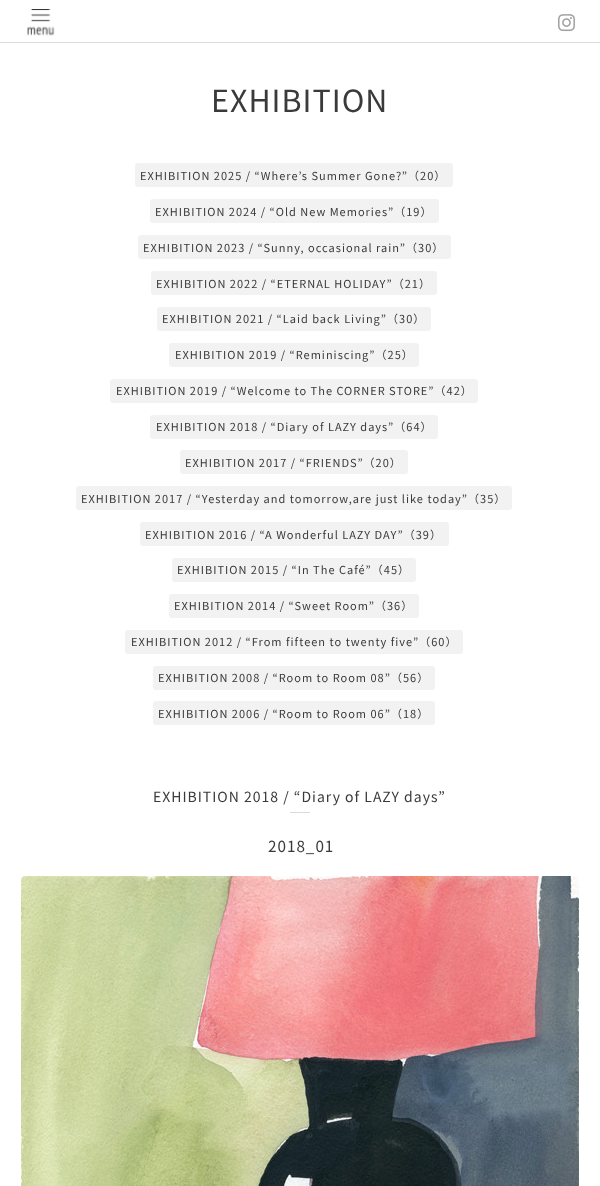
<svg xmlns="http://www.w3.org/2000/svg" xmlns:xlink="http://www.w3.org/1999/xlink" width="600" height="1186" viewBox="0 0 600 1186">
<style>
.cls-1{font:30.5px Noto Sans JP;letter-spacing:1px;fill:#3a3a3a}
.cls-2{font:11px Noto Sans JP;letter-spacing:1px;fill:#3a3a3a}
.cls-3{font:14px Noto Sans JP;letter-spacing:1px;fill:#3a3a3a}
.cls-4{font:15.25px Noto Sans JP;letter-spacing:1px;fill:#3a3a3a}
</style>
<rect width="100%" height="100%" fill="#ffffff"/>
<rect fill="#dadbdb" x="0" y="42" width="600" height="1"/>
<image xlink:href="image0.png" x="27" y="9" width="28" height="27"/>
<image xlink:href="image1.png" x="558" y="14" width="17" height="18"/>
<rect fill="#f2f2f2" x="135" y="163" width="318" height="24" rx="3"/>
<rect fill="#f2f2f2" x="150" y="199" width="289" height="24" rx="3"/>
<rect fill="#f2f2f2" x="138" y="235" width="313" height="24" rx="3"/>
<rect fill="#f2f2f2" x="151" y="271" width="286" height="24" rx="3"/>
<rect fill="#f2f2f2" x="157" y="307" width="274" height="24" rx="3"/>
<rect fill="#f2f2f2" x="169" y="343" width="250" height="24" rx="3"/>
<rect fill="#f2f2f2" x="110" y="379" width="368" height="24" rx="3"/>
<rect fill="#f2f2f2" x="150" y="415" width="288" height="24" rx="3"/>
<rect fill="#f2f2f2" x="180" y="450" width="228" height="24" rx="3"/>
<rect fill="#f2f2f2" x="76" y="486" width="436" height="24" rx="3"/>
<rect fill="#f2f2f2" x="140" y="522" width="309" height="24" rx="3"/>
<rect fill="#f2f2f2" x="172" y="558" width="244" height="24" rx="3"/>
<rect fill="#f2f2f2" x="169" y="594" width="250" height="24" rx="3"/>
<rect fill="#f2f2f2" x="125" y="630" width="338" height="24" rx="3"/>
<rect fill="#f2f2f2" x="153" y="666" width="282" height="24" rx="3"/>
<rect fill="#f2f2f2" x="153" y="701" width="282" height="24" rx="3"/>
<rect fill="#dadbdb" x="290" y="812" width="20" height="1"/>
<image xlink:href="image2.png" x="21" y="876" width="558" height="310"/>
<text class="cls-1" x="211" y="112">EXHIBITION</text>
<text class="cls-2" x="140" y="180">EXHIBITION 2025 / “Where’s Summer Gone?”（20）</text>
<text class="cls-2" x="155" y="216">EXHIBITION 2024 / “Old New Memories”（19）</text>
<text class="cls-2" x="143" y="252">EXHIBITION 2023 / “Sunny, occasional rain”（30）</text>
<text class="cls-2" x="156" y="288">EXHIBITION 2022 / “ETERNAL HOLIDAY”（21）</text>
<text class="cls-2" x="162" y="323">EXHIBITION 2021 / “Laid back Living”（30）</text>
<text class="cls-2" x="175" y="359">EXHIBITION 2019 / “Reminiscing”（25）</text>
<text class="cls-2" x="116" y="395">EXHIBITION 2019 / “Welcome to The CORNER STORE”（42）</text>
<text class="cls-2" x="156" y="431">EXHIBITION 2018 / “Diary of LAZY days”（64）</text>
<text class="cls-2" x="185" y="467">EXHIBITION 2017 / “FRIENDS”（20）</text>
<text class="cls-2" x="81" y="503">EXHIBITION 2017 / “Yesterday and tomorrow,are just like today”（35）</text>
<text class="cls-2" x="145" y="539">EXHIBITION 2016 / “A Wonderful LAZY DAY”（39）</text>
<text class="cls-2" x="177" y="574">EXHIBITION 2015 / “In The Café”（45）</text>
<text class="cls-2" x="174" y="610">EXHIBITION 2014 / “Sweet Room”（36）</text>
<text class="cls-2" x="131" y="646">EXHIBITION 2012 / “From fifteen to twenty five”（60）</text>
<text class="cls-2" x="158" y="682">EXHIBITION 2008 / “Room to Room 08”（56）</text>
<text class="cls-2" x="158" y="718">EXHIBITION 2006 / “Room to Room 06”（18）</text>
<text class="cls-3" x="153" y="802">EXHIBITION 2018 / “Diary of LAZY days”</text>
<text class="cls-4" x="268" y="852">2018_01</text>
</svg>
